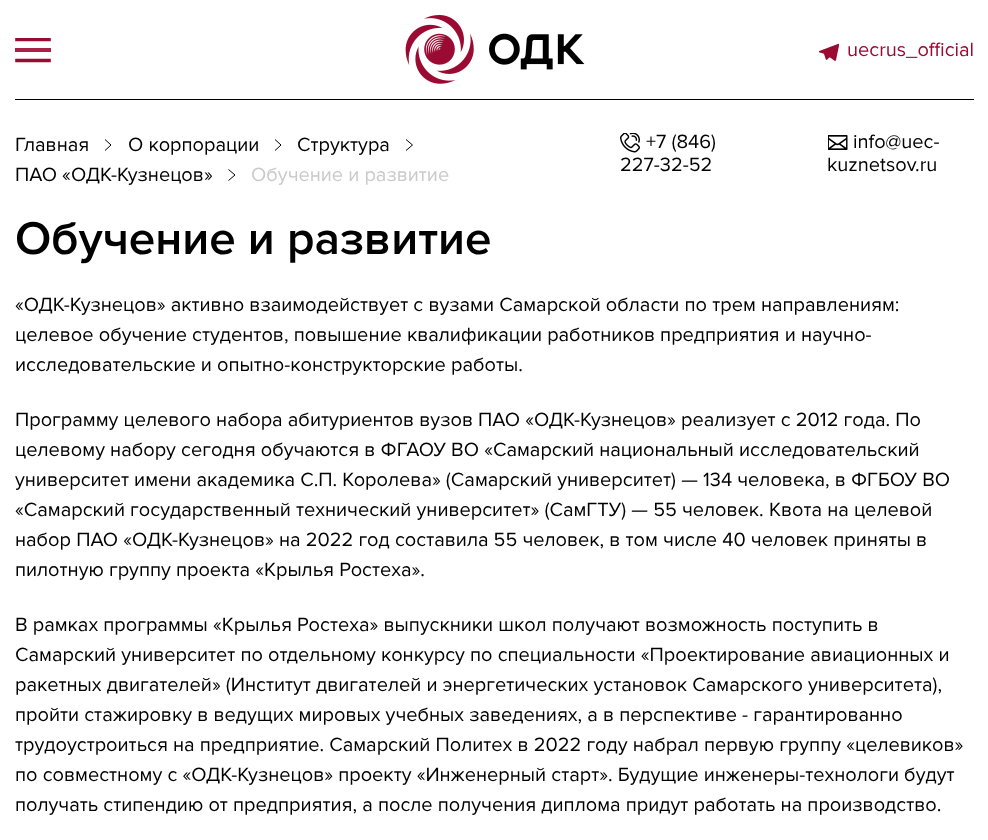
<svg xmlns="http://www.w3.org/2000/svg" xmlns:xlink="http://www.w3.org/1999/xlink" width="988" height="840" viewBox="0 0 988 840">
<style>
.cls-1{font:20px Proxima Nova;fill:#9a0a32}
.cls-2{font:20px Proxima Nova;fill:#000000}
.cls-3{font:20px Proxima Nova;fill:#cacaca}
.cls-4{font:600 47.5px Proxima Nova;fill:#000000}
</style>
<defs>
<clipPath id="clip1"><rect x="15" y="38" width="36" height="25"/></clipPath>
</defs>
<rect width="100%" height="100%" fill="#ffffff"/>
<rect fill="#000000" x="15" y="99" width="959" height="1"/>
<rect fill="#a42347" x="15" y="48" width="36" height="4"/>
<g clip-path="url(#clip1)">
<path fill="none" stroke="#9a0a32" stroke-width="3.6" stroke-linecap="square" stroke-linejoin="round" d="M17 39.5H49"/>
</g>
<path fill="none" stroke="#9a0a32" stroke-width="3.6" stroke-linecap="square" stroke-linejoin="round" d="M17 60.5H49"/>
<image xlink:href="image0.png" x="405" y="15" width="180" height="69"/>
<image xlink:href="image1.png" x="819" y="43" width="20" height="18"/>
<path fill="none" stroke="#000000" d="M105 139.5L111 145L105 150.5"/>
<path fill="none" stroke="#000000" d="M275 139.5L281 145L275 150.5"/>
<path fill="none" stroke="#000000" d="M406 139.5L412.5 145L406 150.5"/>
<path fill="none" stroke="#000000" d="M228.5 169.5L235 175L228.5 180.5"/>
<image xlink:href="image2.png" x="620" y="133" width="20" height="20"/>
<image xlink:href="image3.png" x="828" y="135" width="20" height="15"/>
<text class="cls-1" x="847" y="56">uecrus_official</text>
<text class="cls-2" x="15" y="151">Главная</text>
<text class="cls-2" x="128" y="151">О корпорации</text>
<text class="cls-2" x="297" y="151">Структура</text>
<text class="cls-2" x="15" y="181">ПАО «ОДК-Кузнецов»</text>
<text class="cls-3" x="251" y="181">Обучение и развитие</text>
<text class="cls-2" x="646" y="148">+7 (846)</text>
<text class="cls-2" x="620" y="171">227-32-52</text>
<text class="cls-2" x="853" y="148">info@uec-</text>
<text class="cls-2" x="827" y="171">kuznetsov.ru</text>
<text class="cls-4" x="15" y="254">Обучение и развитие</text>
<text class="cls-2"><tspan x="15" y="311">«ОДК-Кузнецов» активно взаимодействует с вузами Самарской области по трем направлениям:</tspan><tspan x="15" y="341">целевое обучение студентов, повышение квалификации работников предприятия и научно-</tspan><tspan x="15" y="371">исследовательские и опытно-конструкторские работы.</tspan></text>
<text class="cls-2"><tspan x="15" y="426">Программу целевого набора абитуриентов вузов ПАО «ОДК-Кузнецов» реализует с 2012 года. По</tspan><tspan x="15" y="456">целевому набору сегодня обучаются в ФГАОУ ВО «Самарский национальный исследовательский</tspan><tspan x="15" y="486">университет имени академика С.П. Королева» (Самарский университет) — 134 человека, в ФГБОУ ВО</tspan><tspan x="15" y="516">«Самарский государственный технический университет» (СамГТУ) — 55 человек. Квота на целевой</tspan><tspan x="15" y="546">набор ПАО «ОДК-Кузнецов» на 2022 год составила 55 человек, в том числе 40 человек приняты в</tspan><tspan x="15" y="576">пилотную группу проекта «Крылья Ростеха».</tspan></text>
<text class="cls-2"><tspan x="15" y="631">В рамках программы «Крылья Ростеха» выпускники школ получают возможность поступить в</tspan><tspan x="15" y="661">Самарский университет по отдельному конкурсу по специальности «Проектирование авиационных и</tspan><tspan x="15" y="691">ракетных двигателей» (Институт двигателей и энергетических установок Самарского университета),</tspan><tspan x="15" y="721">пройти стажировку в ведущих мировых учебных заведениях, а в перспективе - гарантированно</tspan><tspan x="15" y="751">трудоустроиться на предприятие. Самарский Политех в 2022 году набрал первую группу «целевиков»</tspan><tspan x="15" y="781">по совместному с «ОДК-Кузнецов» проекту «Инженерный старт». Будущие инженеры-технологи будут</tspan><tspan x="15" y="811">получать стипендию от предприятия, а после получения диплома придут работать на производство.</tspan></text>
</svg>
